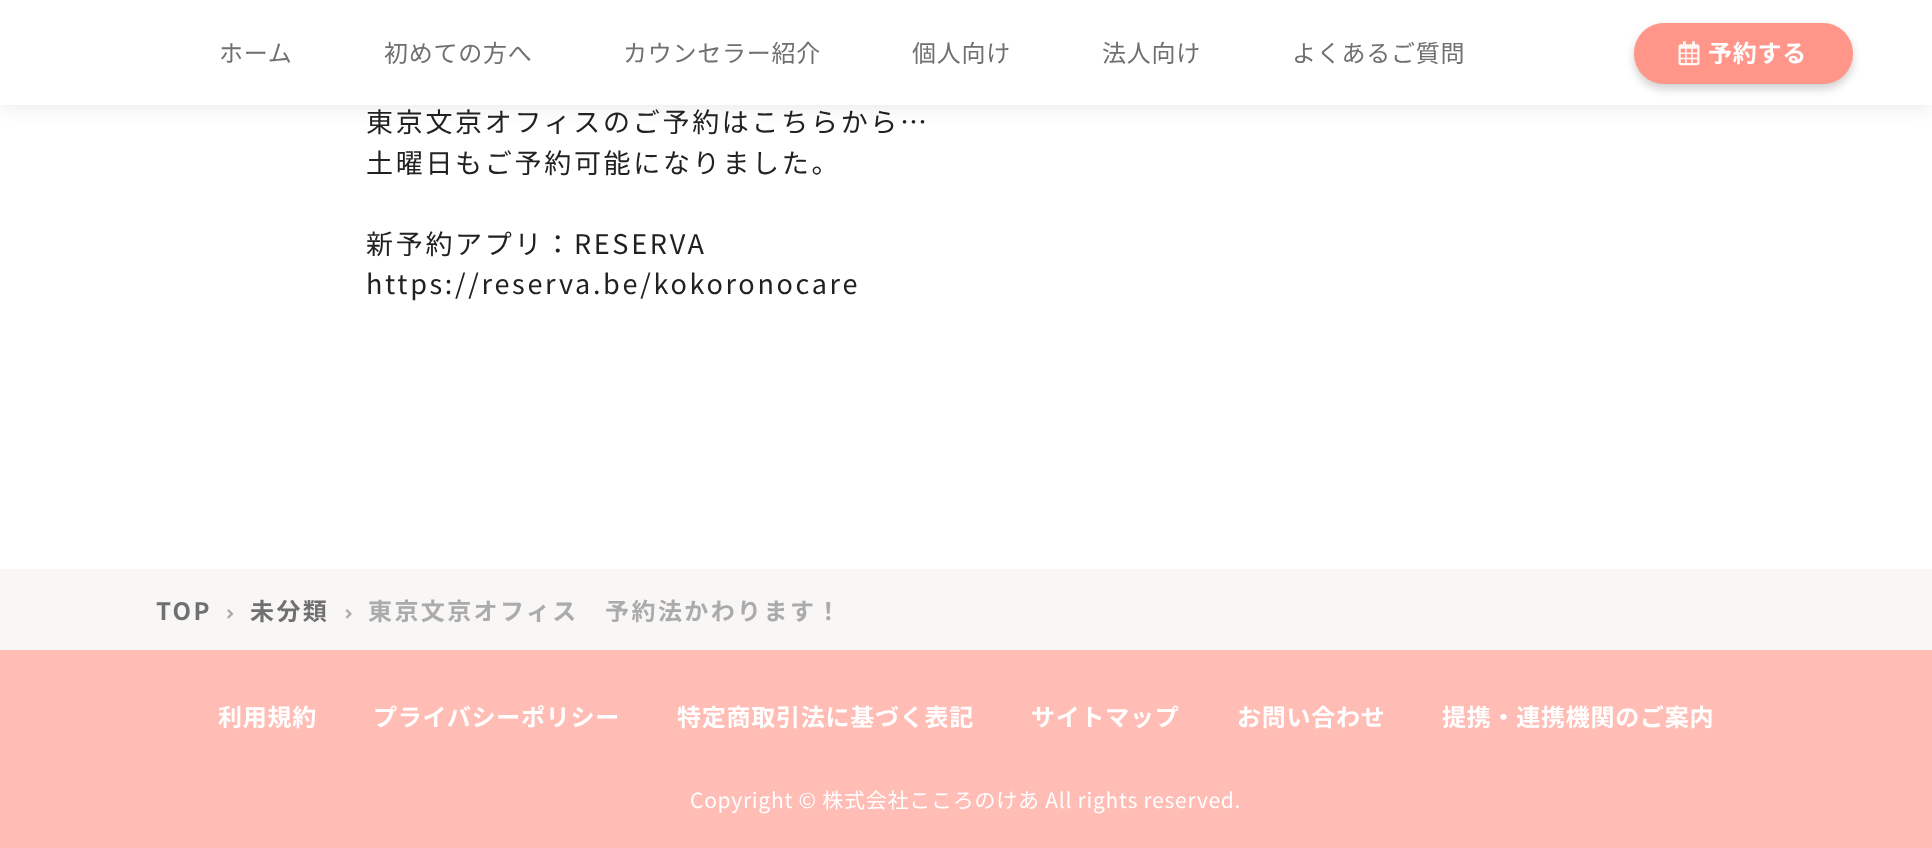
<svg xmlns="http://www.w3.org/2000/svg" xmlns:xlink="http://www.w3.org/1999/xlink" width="1932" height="848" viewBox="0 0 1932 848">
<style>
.cls-1{font:24px Noto Sans JP;letter-spacing:0.75px;fill:#707070}
.cls-2{font:bold 24px Noto Sans JP;letter-spacing:0.75px;fill:#ffffff}
.cls-3{font:27px Noto Sans JP;letter-spacing:2.7px;fill:#212121}
.cls-4{font:bold 24px Noto Sans JP;letter-spacing:2.4px;fill:#707070}
.cls-5{font:bold 24px Noto Sans JP;letter-spacing:2.4px;fill:#ababab}
.cls-6{font:21px Noto Sans JP;letter-spacing:0.75px;fill:#ffffff}
</style>
<rect width="100%" height="100%" fill="#ffffff"/>
<rect fill="#000000" fill-opacity="0.1" filter="blur(11px)" x="0" y="-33" width="1932" height="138"/>
<rect fill="#ffffff" x="0" y="0" width="1932" height="105"/>
<rect fill="#1a1a1a" fill-opacity="0.2" filter="blur(4.5px)" x="1634" y="27" width="219" height="62" rx="30"/>
<rect fill="#ff9689" x="1634" y="23" width="219" height="61" rx="30"/>
<image xlink:href="image0.png" x="1678" y="41" width="22" height="25"/>
<rect fill="#f8f7f5" x="0" y="569" width="1932" height="81"/>
<image xlink:href="image1.png" x="227" y="609" width="7" height="10"/>
<image xlink:href="image2.png" x="345" y="609" width="7" height="10"/>
<rect fill="#ffbdb5" x="0" y="650" width="1932" height="198"/>
<text class="cls-1" x="219" y="62">ホーム</text>
<text class="cls-1" x="384" y="62">初めての方へ</text>
<text class="cls-1" x="623" y="62">カウンセラー紹介</text>
<text class="cls-1" x="912" y="62">個人向け</text>
<text class="cls-1" x="1102" y="62">法人向け</text>
<text class="cls-1" x="1292" y="62">よくあるご質問</text>
<text class="cls-2" x="1708" y="62">予約する</text>
<text class="cls-3"><tspan x="366" y="132">東京文京オフィスのご予約はこちらから…</tspan><tspan x="366" y="173">土曜日もご予約可能になりました。</tspan></text>
<text class="cls-3"><tspan x="366" y="254">新予約アプリ：RESERVA</tspan><tspan x="366" y="294">https://reserva.be/kokoronocare</tspan></text>
<text class="cls-4" x="156" y="620">TOP</text>
<text class="cls-4" x="250" y="620">未分類</text>
<text class="cls-5" x="368" y="620">東京文京オフィス　予約法かわります！</text>
<text class="cls-2" x="218" y="726">利用規約</text>
<text class="cls-2" x="373" y="726">プライバシーポリシー</text>
<text class="cls-2" x="677" y="726">特定商取引法に基づく表記</text>
<text class="cls-2" x="1031" y="726">サイトマップ</text>
<text class="cls-2" x="1237" y="726">お問い合わせ</text>
<text class="cls-2" x="1442" y="726">提携・連携機関のご案内</text>
<text class="cls-6" x="690" y="808">Copyright © 株式会社こころのけあ All rights reserved.</text>
</svg>
